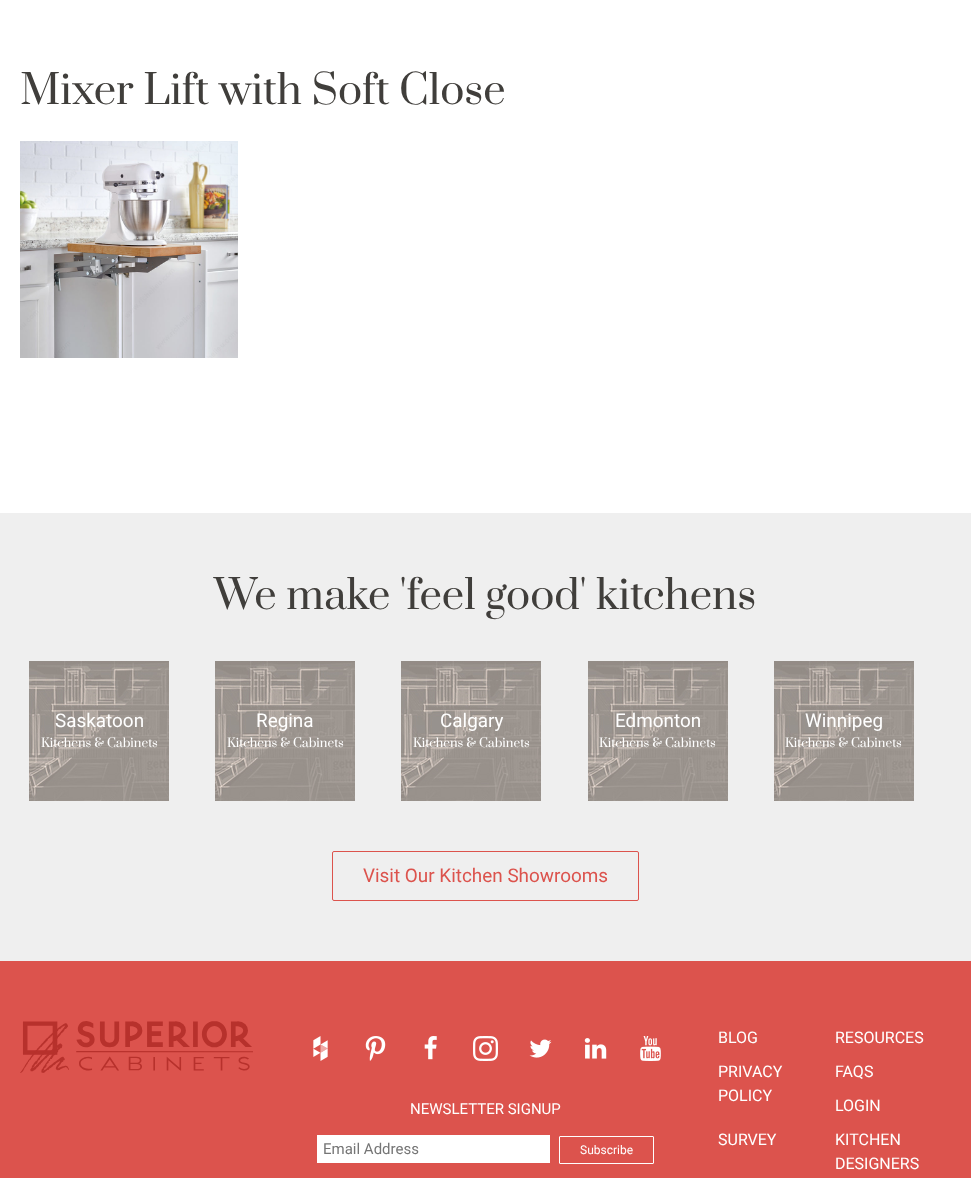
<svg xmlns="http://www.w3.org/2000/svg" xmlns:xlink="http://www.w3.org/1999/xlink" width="971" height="1178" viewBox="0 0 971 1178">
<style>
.cls-1{font:39.9px Prata;fill:#403e3b}
.cls-2{font:18.9px Roboto;fill:#ffffff}
.cls-3{font:12px Prata;fill:#ffffff}
.cls-4{font:18.9px Roboto;fill:#dc534d}
.cls-5{font:15px Roboto;fill:#ffffff}
.cls-6{font:15px Roboto;fill:#757575}
.cls-7{font:12px Roboto;fill:#ffffff}
.cls-8{font:16px Roboto;fill:#ffffff}
</style>
<rect width="100%" height="100%" fill="#ffffff"/>
<image xlink:href="image0.png" x="20" y="141" width="218" height="217"/>
<rect fill="#efefef" x="0" y="513" width="971" height="448"/>
<image xlink:href="image1.png" x="29" y="661" width="140" height="140"/>
<image xlink:href="image1.png" x="215" y="661" width="140" height="140"/>
<image xlink:href="image1.png" x="401" y="661" width="140" height="140"/>
<image xlink:href="image1.png" x="588" y="661" width="140" height="140"/>
<image xlink:href="image1.png" x="774" y="661" width="140" height="140"/>
<rect fill="none" stroke="#dc534d" x="332.5" y="851.5" width="306" height="49" rx="1.5"/>
<rect fill="#dc534d" x="0" y="961" width="971" height="217"/>
<image xlink:href="image2.png" x="20" y="1021" width="233" height="52"/>
<image xlink:href="image3.png" x="313" y="1036" width="15" height="25"/>
<image xlink:href="image4.png" x="365" y="1036" width="21" height="25"/>
<image xlink:href="image5.png" x="424" y="1036" width="13" height="24"/>
<image xlink:href="image6.png" x="473" y="1036" width="25" height="25"/>
<image xlink:href="image7.png" x="529" y="1039" width="23" height="19"/>
<image xlink:href="image8.png" x="584" y="1038" width="23" height="21"/>
<image xlink:href="image9.png" x="640" y="1036" width="21" height="25"/>
<rect fill="#ffffff" x="317" y="1135" width="233" height="28"/>
<rect fill="none" stroke="#ffffff" x="559.5" y="1136.5" width="94" height="27" rx="0.5"/>
<text class="cls-1" x="20" y="104">Mixer Lift with Soft Close</text>
<text class="cls-1" x="214" y="609">We make 'feel good' kitchens</text>
<text class="cls-2" x="55" y="727">Saskatoon</text>
<text class="cls-3" x="41" y="747">Kitchens &amp; Cabinets</text>
<text class="cls-2" x="256" y="727">Regina</text>
<text class="cls-3" x="227" y="747">Kitchens &amp; Cabinets</text>
<text class="cls-2" x="440" y="727">Calgary</text>
<text class="cls-3" x="413" y="747">Kitchens &amp; Cabinets</text>
<text class="cls-2" x="615" y="727">Edmonton</text>
<text class="cls-3" x="599" y="747">Kitchens &amp; Cabinets</text>
<text class="cls-2" x="805" y="727">Winnipeg</text>
<text class="cls-3" x="785" y="747">Kitchens &amp; Cabinets</text>
<text class="cls-4" x="363" y="882">Visit Our Kitchen Showrooms</text>
<text class="cls-5" x="410" y="1114">NEWSLETTER SIGNUP</text>
<text class="cls-6" x="323" y="1154">Email Address</text>
<text class="cls-7" x="580" y="1154">Subscribe</text>
<text class="cls-8" x="718" y="1043">BLOG</text>
<text class="cls-8" x="835" y="1043">RESOURCES</text>
<text class="cls-8"><tspan x="718" y="1077">PRIVACY</tspan><tspan x="718" y="1101">POLICY</tspan></text>
<text class="cls-8" x="835" y="1077">FAQS</text>
<text class="cls-8" x="835" y="1111">LOGIN</text>
<text class="cls-8" x="718" y="1145">SURVEY</text>
<text class="cls-8"><tspan x="835" y="1145">KITCHEN</tspan><tspan x="835" y="1169">DESIGNERS</tspan></text>
</svg>
